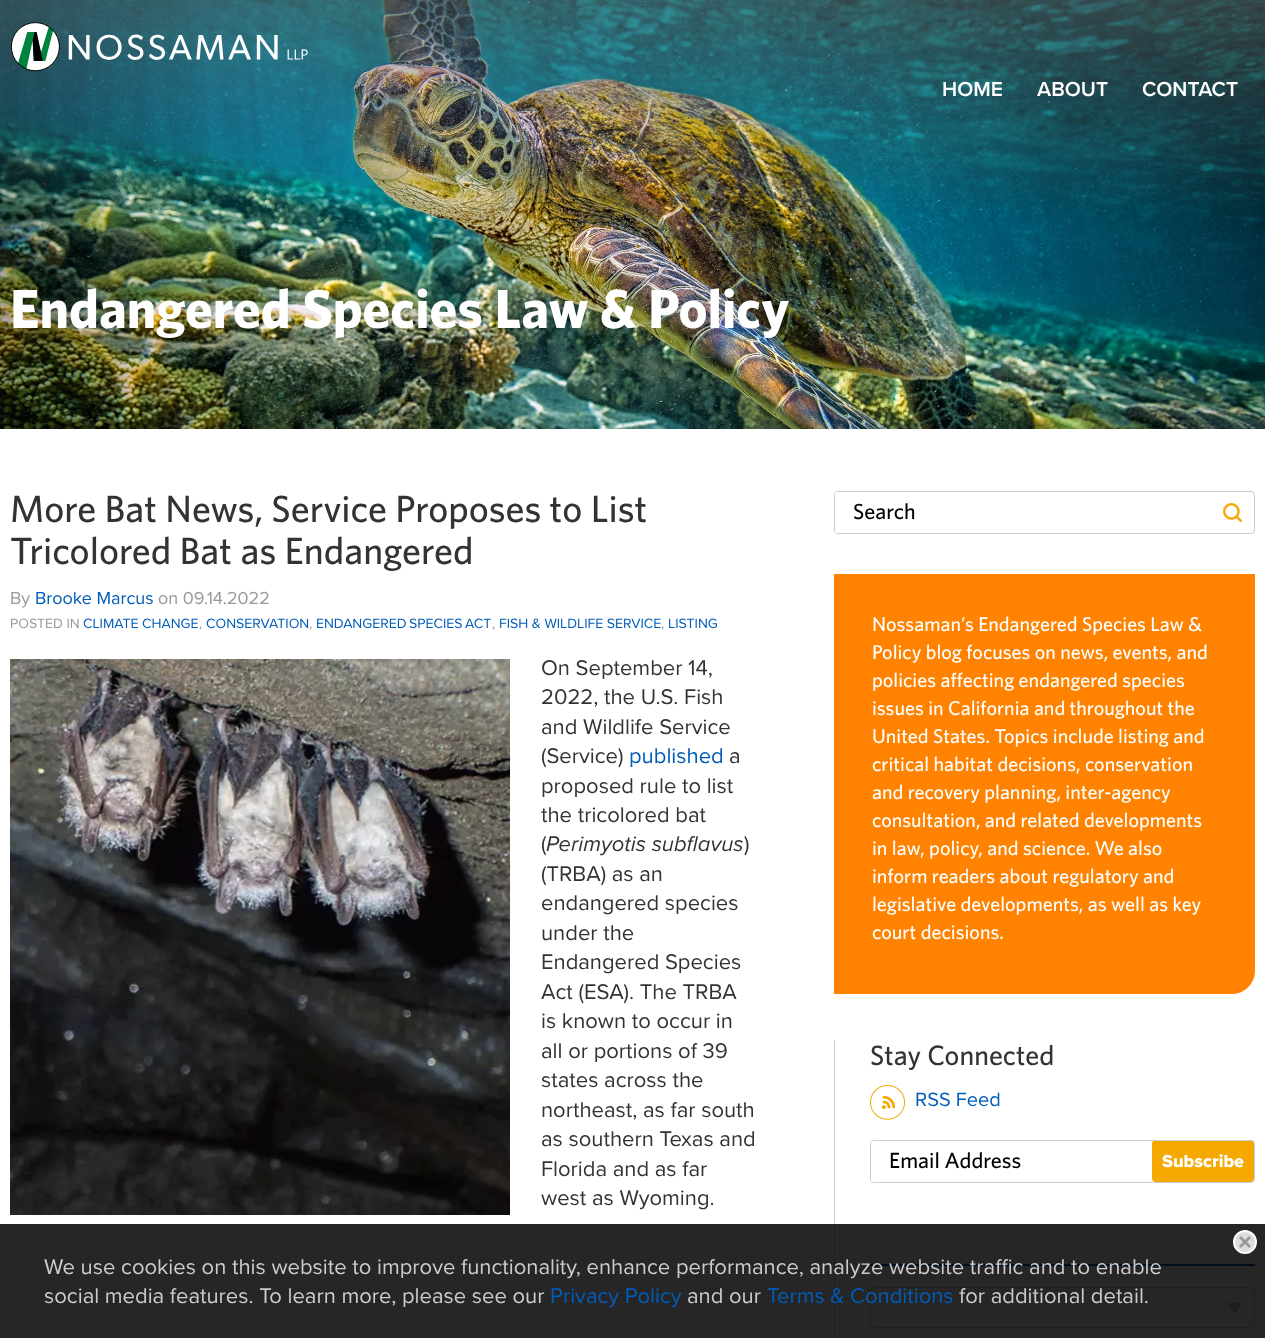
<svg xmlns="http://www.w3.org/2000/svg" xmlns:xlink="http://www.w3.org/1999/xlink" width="1265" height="1338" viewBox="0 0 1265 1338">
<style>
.cls-1{font:600 21px Proxima Nova;fill:#ffffff}
.cls-2{font:bold 55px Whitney;fill:#ffffff}
.cls-3{font:500 38px Whitney;fill:#333333}
.cls-4{font:18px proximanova;fill:#999999}
.cls-5{font:18px proximanova;fill:#005cb9}
.cls-6{font:14px proximanova;fill:#999999}
.cls-7{font:14px proximanova;fill:#005cb9}
.cls-8{font:22px proximanova;fill:#333333}
.cls-9{font:22px proximanova;fill:#005cb9}
.cls-10{font:italic 22px proximanova;fill:#333333}
.cls-11{font:500 22px Whitney;fill:#000000}
.cls-12{font:500 20px Whitney;fill:#ffffff}
.cls-13{font:500 28px Whitney;fill:#333333}
.cls-14{font:20px proximanova;fill:#005cb9}
.cls-15{font:800 18px Proxima Nova;fill:#ffffff}
.cls-16{font:22px proximanova;fill:#cccccc}
</style>
<defs>
<clipPath id="clip1"><rect x="871" y="1141" width="383" height="41"/></clipPath>
</defs>
<rect width="100%" height="100%" fill="#ffffff"/>
<image xlink:href="image1.png" x="0" y="0" width="1265" height="429"/>
<image xlink:href="image0.png" x="10" y="22" width="298" height="50"/>
<image xlink:href="image2.png" x="10" y="659" width="500" height="556"/>
<rect fill="#cccccc" x="834" y="1040" width="1" height="298"/>
<rect fill="none" stroke="#cccccc" x="834.5" y="491.5" width="420" height="42" rx="3.5"/>
<rect fill="#ffffff" x="835" y="492" width="377" height="41" rx="3"/>
<image xlink:href="image3.png" x="1223" y="503" width="19" height="19"/>
<path fill="#ff8300" d="M834 574H1255V971C1255 983.5 1244.5 994 1232 994H834Z"/>
<image xlink:href="image4.png" x="870" y="1085" width="35" height="35"/>
<rect fill="none" stroke="#cccccc" x="870.5" y="1140.5" width="384" height="42" rx="3.5"/>
<rect fill="#ffffff" x="871" y="1141" width="281" height="41" rx="3"/>
<g clip-path="url(#clip1)">
<rect fill="#f5a800" x="1152" y="1140" width="102" height="42" rx="4"/>
</g>
<rect fill="#005cb9" x="870" y="1264" width="385" height="2"/>
<rect fill="none" stroke="#cccccc" x="870.5" y="1287.5" width="384" height="40" rx="3.5"/>
<path fill="#c1c1c1" d="M1227 1303H1243L1235 1313Z"/>
<rect fill="#000000" fill-opacity="0.85" x="0" y="1224" width="1265" height="114"/>
<circle fill="#dddddd" stroke="#ffffff" stroke-width="2" cx="1245" cy="1242" r="11"/>
<path fill="#999999" d="M1239 1246L1249 1236L1251 1238L1241 1248Z"/>
<path fill="#999999" d="M1241 1236L1251 1246L1249 1248L1239 1238Z"/>
<text class="cls-1" x="942" y="96">HOME</text>
<text class="cls-1" x="1037" y="96">ABOUT</text>
<text class="cls-1" x="1142" y="96">CONTACT</text>
<text class="cls-2" x="10" y="328">Endangered Species Law &amp; Policy</text>
<text class="cls-3"><tspan x="10" y="522">More Bat News, Service Proposes to List</tspan><tspan x="10" y="564">Tricolored Bat as Endangered</tspan></text>
<text class="cls-4" x="10" y="604">By</text>
<text class="cls-5" x="35" y="604">Brooke Marcus</text>
<text class="cls-4" x="158" y="604">on 09.14.2022</text>
<text class="cls-6" x="10" y="628">POSTED IN</text>
<text class="cls-7" x="83" y="628">CLIMATE CHANGE</text>
<text class="cls-6" x="199" y="628">,</text>
<text class="cls-7" x="206" y="628">CONSERVATION</text>
<text class="cls-6" x="309" y="628">,</text>
<text class="cls-7" x="316" y="628" word-spacing="-1">ENDANGERED SPECIES ACT</text>
<text class="cls-6" x="492" y="628">,</text>
<text class="cls-7" x="499" y="628">FISH &amp; WILDLIFE SERVICE</text>
<text class="cls-6" x="661" y="628">,</text>
<text class="cls-7" x="668" y="628">LISTING</text>
<text class="cls-8"><tspan x="541" y="675">On September 14,</tspan><tspan x="541" y="704">2022, the U.S. Fish</tspan><tspan x="541" y="734">and Wildlife Service</tspan><tspan x="541" y="763">(Service)</tspan></text>
<text class="cls-9" x="629" y="763">published</text>
<text class="cls-8" x="729" y="763">a</text>
<text class="cls-8"><tspan x="541" y="793">proposed rule to list</tspan><tspan x="541" y="822">the tricolored bat</tspan><tspan x="541" y="851">(</tspan></text>
<text class="cls-10" x="546" y="851">Perimyotis subflavus</text>
<text class="cls-8" x="744" y="851">)</text>
<text class="cls-8"><tspan x="541" y="881">(TRBA) as an</tspan><tspan x="541" y="910">endangered species</tspan><tspan x="541" y="940">under the</tspan><tspan x="541" y="969">Endangered Species</tspan><tspan x="541" y="999">Act (ESA). The TRBA</tspan><tspan x="541" y="1028">is known to occur in</tspan><tspan x="541" y="1058">all or portions of 39</tspan><tspan x="541" y="1087">states across the</tspan><tspan x="541" y="1117">northeast, as far south</tspan><tspan x="541" y="1146">as southern Texas and</tspan><tspan x="541" y="1176">Florida and as far</tspan><tspan x="541" y="1205">west as Wyoming.</tspan></text>
<text class="cls-11" x="853" y="519">Search</text>
<text class="cls-12"><tspan x="872" y="631">Nossaman’s Endangered Species Law &amp;</tspan><tspan x="872" y="659">Policy blog focuses on news, events, and</tspan><tspan x="872" y="687">policies affecting endangered species</tspan><tspan x="872" y="715">issues in California and throughout the</tspan><tspan x="872" y="743">United States. Topics include listing and</tspan><tspan x="872" y="771">critical habitat decisions, conservation</tspan><tspan x="872" y="799">and recovery planning, inter-agency</tspan><tspan x="872" y="827">consultation, and related developments</tspan><tspan x="872" y="855">in law, policy, and science. We also</tspan><tspan x="872" y="883">inform readers about regulatory and</tspan><tspan x="872" y="911">legislative developments, as well as key</tspan><tspan x="872" y="939">court decisions.</tspan></text>
<text class="cls-13" x="870" y="1065">Stay Connected</text>
<text class="cls-14" x="915" y="1106">RSS Feed</text>
<text class="cls-11" x="889" y="1168">Email Address</text>
<text class="cls-15" x="1162" y="1167">Subscribe</text>
<text class="cls-16"><tspan x="44" y="1274">We use cookies on this website to improve functionality, enhance performance, analyze website traffic and to enable</tspan><tspan x="44" y="1303">social media features. To learn more, please see our</tspan></text>
<text class="cls-9" x="550" y="1303">Privacy Policy</text>
<text class="cls-16" x="687" y="1303">and our</text>
<text class="cls-9" x="767" y="1303">Terms &amp; Conditions</text>
<text class="cls-16" x="959" y="1303">for additional detail.</text>
</svg>
